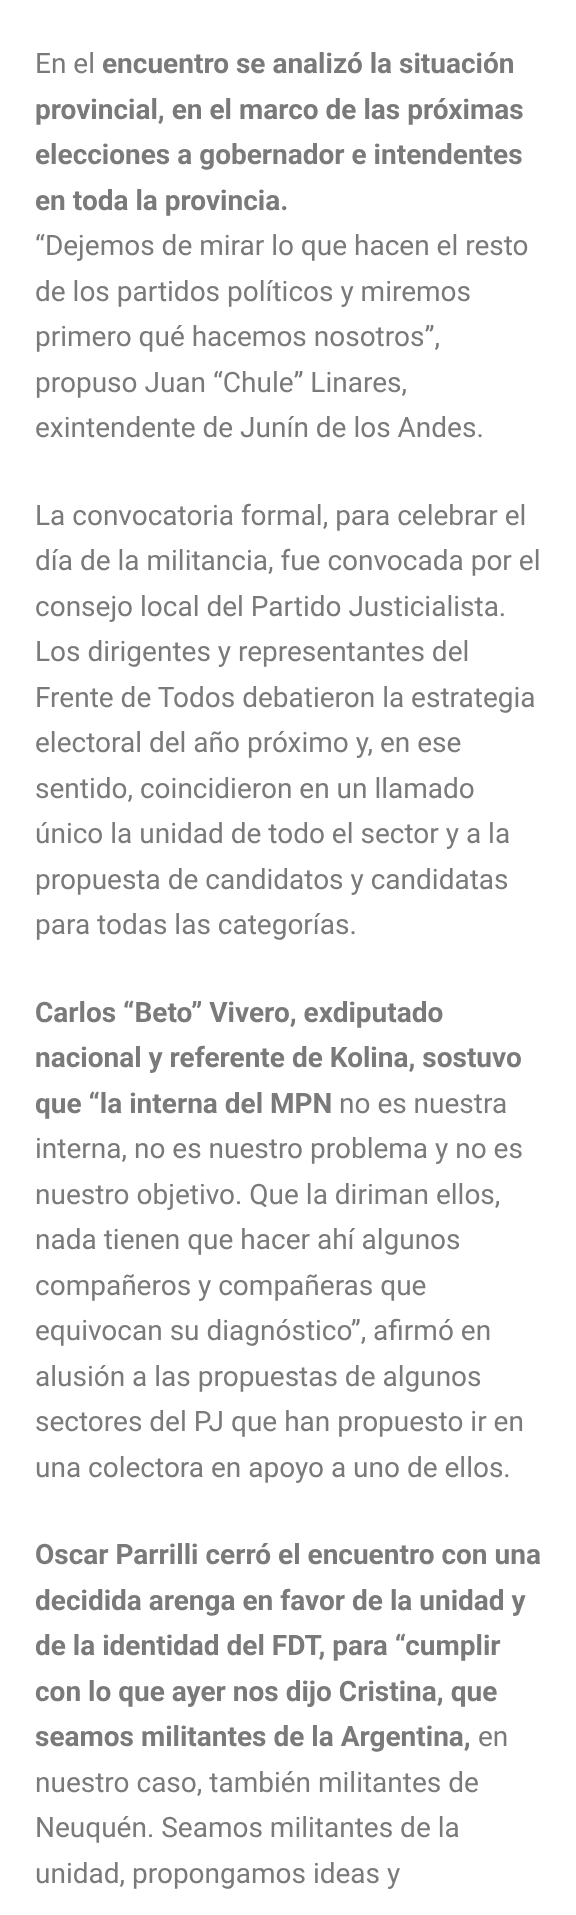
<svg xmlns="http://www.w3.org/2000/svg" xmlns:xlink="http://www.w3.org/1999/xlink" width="576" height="1915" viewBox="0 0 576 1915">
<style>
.cls-1{font:28px Roboto;fill:#7a7a7a}
.cls-2{font:bold 28px Roboto;fill:#7a7a7a}
</style>
<rect width="100%" height="100%" fill="#ffffff"/>
<text class="cls-1" x="35" y="73">En el</text>
<text class="cls-2" x="102" y="73">encuentro se analizó la situación</text>
<text class="cls-2"><tspan x="35" y="119">provincial, en el marco de las próximas</tspan><tspan x="35" y="164">elecciones a gobernador e intendentes</tspan><tspan x="35" y="210">en toda la provincia.</tspan></text>
<text class="cls-1"><tspan x="35" y="255">“Dejemos de mirar lo que hacen el resto</tspan><tspan x="35" y="301">de los partidos políticos y miremos</tspan><tspan x="35" y="346">primero qué hacemos nosotros”,</tspan><tspan x="35" y="392">propuso Juan “Chule” Linares,</tspan><tspan x="35" y="437">exintendente de Junín de los Andes.</tspan></text>
<text class="cls-1"><tspan x="35" y="525">La convocatoria formal, para celebrar el</tspan><tspan x="35" y="570">día de la militancia, fue convocada por el</tspan><tspan x="35" y="616">consejo local del Partido Justicialista.</tspan><tspan x="35" y="661">Los dirigentes y representantes del</tspan><tspan x="35" y="707">Frente de Todos debatieron la estrategia</tspan><tspan x="35" y="752">electoral del año próximo y, en ese</tspan><tspan x="35" y="798">sentido, coincidieron en un llamado</tspan><tspan x="35" y="843">único la unidad de todo el sector y a la</tspan><tspan x="35" y="889">propuesta de candidatos y candidatas</tspan><tspan x="35" y="934">para todas las categorías.</tspan></text>
<text class="cls-2"><tspan x="35" y="1022">Carlos “Beto” Vivero, exdiputado</tspan><tspan x="35" y="1067">nacional y referente de Kolina, sostuvo</tspan><tspan x="35" y="1113">que “la interna del MPN</tspan></text>
<text class="cls-1" x="339" y="1113">no es nuestra</text>
<text class="cls-1"><tspan x="35" y="1158">interna, no es nuestro problema y no es</tspan><tspan x="35" y="1204">nuestro objetivo. Que la diriman ellos,</tspan><tspan x="35" y="1249">nada tienen que hacer ahí algunos</tspan><tspan x="35" y="1295">compañeros y compañeras que</tspan><tspan x="35" y="1340">equivocan su diagnóstico”, afirmó en</tspan><tspan x="35" y="1386">alusión a las propuestas de algunos</tspan><tspan x="35" y="1431">sectores del PJ que han propuesto ir en</tspan><tspan x="35" y="1477">una colectora en apoyo a uno de ellos.</tspan></text>
<text class="cls-2"><tspan x="35" y="1564">Oscar Parrilli cerró el encuentro con una</tspan><tspan x="35" y="1610">decidida arenga en favor de la unidad y</tspan><tspan x="35" y="1655">de la identidad del FDT, para “cumplir</tspan><tspan x="35" y="1701">con lo que ayer nos dijo Cristina, que</tspan><tspan x="35" y="1746">seamos militantes de la Argentina,</tspan></text>
<text class="cls-1" x="478" y="1746">en</text>
<text class="cls-1"><tspan x="35" y="1792">nuestro caso, también militantes de</tspan><tspan x="35" y="1837">Neuquén. Seamos militantes de la</tspan><tspan x="35" y="1883">unidad, propongamos ideas y</tspan></text>
</svg>
